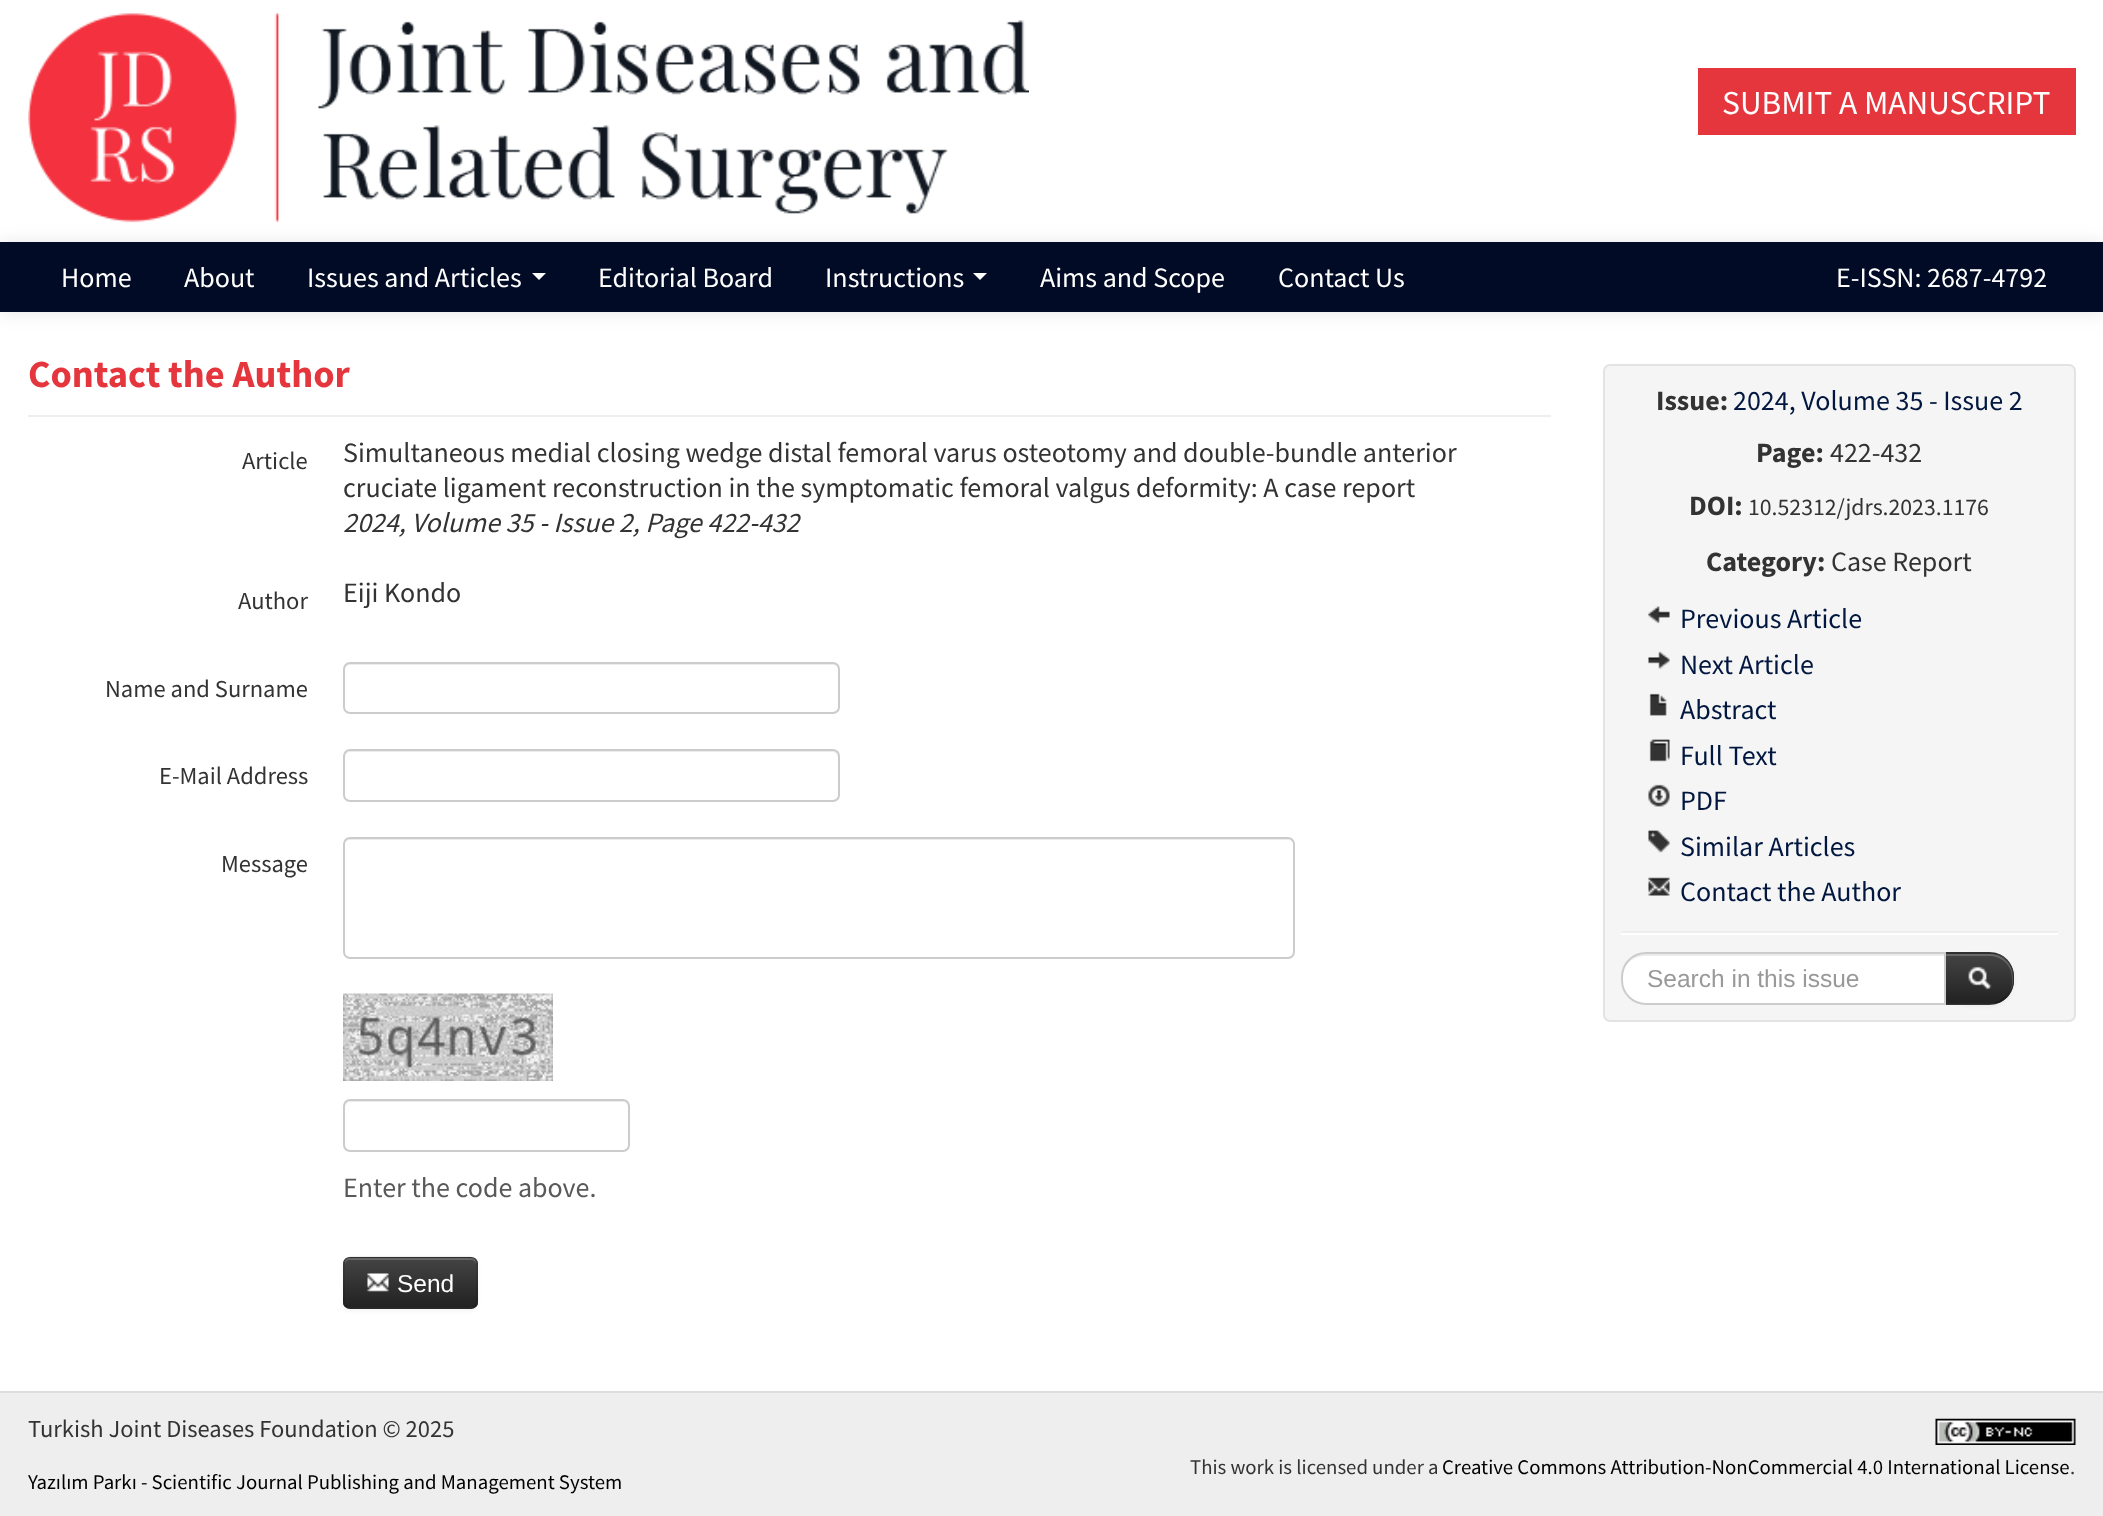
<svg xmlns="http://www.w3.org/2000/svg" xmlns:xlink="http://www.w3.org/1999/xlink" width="2103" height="1516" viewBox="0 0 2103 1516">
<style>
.cls-1{font:33.5px Source Sans Pro;fill:#ffffff}
.cls-2{font:28px Source Sans Pro;fill:#ffffff}
.cls-3{font:bold 38.5px Source Sans Pro;fill:#e5363e}
.cls-4{font:24.5px Source Sans Pro;fill:#333333}
.cls-5{font:28px Source Sans Pro;fill:#333333}
.cls-6{font:italic 28px Source Sans Pro;fill:#333333}
.cls-7{font:28px Source Sans Pro;fill:#595959}
.cls-8{font:24.5px Liberation Sans;fill:#ffffff}
.cls-9{font:bold 28px Source Sans Pro;fill:#333333}
.cls-10{font:28px Source Sans Pro;fill:#02173f}
.cls-11{font:23.75px Source Sans Pro;fill:#333333}
.cls-12{font:24.5px Liberation Sans;fill:#999999}
.cls-13{font:20.8px Source Sans Pro;fill:#000000}
.cls-14{font:20.8px Source Sans Pro;fill:#333333}
</style>
<defs>
<clipPath id="clip1"><rect x="343" y="1257" width="135" height="52" rx="7"/></clipPath>
<linearGradient id="g1" gradientUnits="userSpaceOnUse" x1="410" y1="1258" x2="410" y2="1307"><stop offset="0" stop-color="#444444"/><stop offset="1" stop-color="#222222"/></linearGradient>
<clipPath id="clip2"><path d="M1944 952H1989C2003 952 2014 963 2014 977V980C2014 994 2003 1005 1989 1005H1944Z"/></clipPath>
<linearGradient id="g2" gradientUnits="userSpaceOnUse" x1="1979" y1="954" x2="1979" y2="1003"><stop offset="0" stop-color="#444444"/><stop offset="1" stop-color="#222222"/></linearGradient>
</defs>
<rect width="100%" height="100%" fill="#ffffff"/>
<rect fill="#000000" fill-opacity="0.1" filter="blur(9px)" x="0" y="243" width="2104" height="70"/>
<image xlink:href="image0.png" x="28" y="13" width="1001" height="210"/>
<rect fill="#e5363e" x="1698" y="68" width="378" height="67"/>
<rect fill="#010b25" x="0" y="242" width="2103" height="70"/>
<path fill="#fefefe" d="M532 273H546L539 280Z"/>
<path fill="#fefefe" d="M973 273H987L980 280Z"/>
<rect fill="#eeeeee" x="28" y="415" width="1523" height="2"/>
<path fill="#ececec" d="M350 665H833C836 665 838 667 838 670V668C838 665 836 663 833 663H350C347 663 345 665 345 668V670C345 667 347 665 350 665Z"/>
<rect fill="none" stroke="#cccccc" stroke-width="2" x="344" y="663" width="495" height="50" rx="6"/>
<path fill="#ececec" d="M350 752H833C836 752 838 755 838 758V756C838 753 836 751 833 751H350C347 751 345 753 345 756V758C345 755 347 752 350 752Z"/>
<rect fill="none" stroke="#cccccc" stroke-width="2" x="344" y="750" width="495" height="51" rx="6"/>
<path fill="#ececec" d="M350 840H1288C1291 840 1293 842 1293 845C1293 842 1292 838 1288 838H350C346 838 345 842 345 845C345 842 347 840 350 840Z"/>
<rect fill="none" stroke="#cccccc" stroke-width="2" x="344" y="838" width="950" height="120" rx="6"/>
<image xlink:href="image1.png" x="343" y="993" width="210" height="88"/>
<path fill="#ececec" d="M350 1102H623C626 1102 628 1105 628 1108V1106C628 1103 626 1101 623 1101H350C347 1101 345 1103 345 1106V1108C345 1105 347 1102 350 1102Z"/>
<rect fill="none" stroke="#cccccc" stroke-width="2" x="344" y="1100" width="285" height="51" rx="6"/>
<rect fill="#000000" fill-opacity="0.05" filter="blur(2px)" x="343" y="1258" width="135" height="53" rx="7"/>
<rect fill="#363636" x="343" y="1257" width="135" height="52" rx="7"/>
<g clip-path="url(#clip1)">
<rect fill="url(#g1)" x="343" y="1258" width="135" height="49"/>
</g>
<path fill="#ffffff" fill-opacity="0.2" d="M350 1260H471C474 1260 476 1262 476 1265V1263C476 1260 474 1258 471 1258H350C347 1258 345 1260 345 1263V1265C345 1262 347 1260 350 1260Z"/>
<path fill="none" stroke="#000000" stroke-opacity="0.25" stroke-width="1.8" d="M475 1306.5C474 1307.5 472.5 1308 471 1308H350C348.5 1308 347 1307.5 345.5 1306.5"/>
<path fill="none" stroke="#000000" stroke-opacity="0.1" stroke-width="1.8" d="M345.5 1306.5C343 1303.5 344 1299 344 1295.5V1283C344 1253.5 340 1257.5 370 1257.5H450.5C481 1257.5 477 1253.5 477 1283V1295.5C477 1299 478 1303.5 475 1306.5"/>
<image xlink:href="image2.png" x="367" y="1273" width="22" height="19"/>
<rect fill="#f5f5f5" stroke="#e3e3e3" stroke-width="2" x="1604" y="365" width="471" height="656" rx="6"/>
<image xlink:href="image3.png" x="1648" y="606" width="22" height="18"/>
<image xlink:href="image4.png" x="1648" y="651" width="22" height="19"/>
<image xlink:href="image5.png" x="1649" y="693" width="18" height="23"/>
<image xlink:href="image6.png" x="1649" y="739" width="21" height="23"/>
<image xlink:href="image7.png" x="1648" y="784" width="22" height="23"/>
<image xlink:href="image8.png" x="1648" y="830" width="22" height="23"/>
<image xlink:href="image9.png" x="1648" y="877" width="22" height="19"/>
<rect fill="#eeeeee" x="1621" y="931" width="437" height="2"/>
<rect fill="#ffffff" x="1621" y="933" width="437" height="2"/>
<rect fill="#000000" fill-opacity="0.05" filter="blur(2px)" x="1944" y="954" width="70" height="52" rx="25"/>
<path fill="#363636" d="M1944 952H1989C2003 952 2014 963 2014 977V980C2014 994 2003 1005 1989 1005H1944Z"/>
<g clip-path="url(#clip2)">
<rect fill="url(#g2)" x="1946" y="954" width="68" height="49"/>
</g>
<path fill="#ffffff" fill-opacity="0.2" d="M1946 956H1990C2002 956 2012 966 2012 978V982C2012 986 2011 990 2009 993C2012 989 2013 985 2013 980V977C2013 964 2003 954 1990 954H1946Z"/>
<path fill="#000000" fill-opacity="0.1" d="M1944 952L1946 954H1990C1996 954 2002 957 2006 961L2007 959C2003 955 1997 952 1990 952Z"/>
<path fill="#000000" fill-opacity="0.1" d="M2007 959.5C2016.5 969 2016.5 987.5 2007 997L2006 996C2014 987 2014.5 969.5 2005.5 960.5Z"/>
<path fill="#000000" fill-opacity="0.25" d="M2007 997C2003 1001 1997 1004 1990 1004H1945L1946 1003H1990C1996 1003 2002 1000 2006 996Z"/>
<path fill="#ffffff" d="M1646 952H1946V1005H1646C1632 1005 1621 994 1621 980V977C1621 963 1632 952 1646 952Z"/>
<path fill="#ececec" d="M1645 956H1944V954H1645C1632 954 1622 964 1622 977V978C1622 966 1632 956 1645 956Z"/>
<path fill="none" stroke="#cccccc" stroke-width="2" d="M1646 953H1945V1004H1646C1632.5 1004 1622 993.5 1622 980V977C1622 963.5 1632.5 953 1646 953Z"/>
<image xlink:href="image10.png" x="1968" y="966" width="24" height="24"/>
<rect fill="#eeeeee" x="0" y="1393" width="2103" height="123"/>
<rect fill="#dddddd" x="0" y="1391" width="2103" height="2"/>
<image xlink:href="image11.png" x="1935" y="1418" width="141" height="27"/>
<text class="cls-1" x="1722" y="114">SUBMIT A MANUSCRIPT</text>
<text class="cls-2" x="61" y="287">Home</text>
<text class="cls-2" x="184" y="287">About</text>
<text class="cls-2" x="307" y="287">Issues and Articles</text>
<text class="cls-2" x="598" y="287">Editorial Board</text>
<text class="cls-2" x="825" y="287">Instructions</text>
<text class="cls-2" x="1040" y="287">Aims and Scope</text>
<text class="cls-2" x="1278" y="287">Contact Us</text>
<text class="cls-2" x="1836" y="287">E-ISSN: 2687-4792</text>
<text class="cls-3" x="28" y="387">Contact the Author</text>
<text class="cls-4" x="242" y="469">Article</text>
<text class="cls-5"><tspan x="343" y="462">Simultaneous medial closing wedge distal femoral varus osteotomy and double-bundle anterior</tspan><tspan x="343" y="497">cruciate ligament reconstruction in the symptomatic femoral valgus deformity: A case report</tspan></text>
<text class="cls-6" x="343" y="532">2024, Volume 35 - Issue 2, Page 422-432</text>
<text class="cls-4" x="238" y="609">Author</text>
<text class="cls-5" x="343" y="602">Eiji Kondo</text>
<text class="cls-4" x="105" y="697">Name and Surname</text>
<text class="cls-4" x="159" y="784">E-Mail Address</text>
<text class="cls-4" x="221" y="872">Message</text>
<text class="cls-7" x="343" y="1197">Enter the code above.</text>
<text class="cls-8" x="397" y="1292">Send</text>
<text class="cls-9" x="1656" y="410">Issue:</text>
<text class="cls-10" x="1733" y="410">2024, Volume 35 - Issue 2</text>
<text class="cls-9" x="1756" y="462">Page:</text>
<text class="cls-5" x="1830" y="462">422-432</text>
<text class="cls-9" x="1689" y="515">DOI:</text>
<text class="cls-11" x="1748" y="515">10.52312/jdrs.2023.1176</text>
<text class="cls-9" x="1706" y="571">Category:</text>
<text class="cls-5" x="1831" y="571">Case Report</text>
<text class="cls-10"><tspan x="1680" y="628">Previous Article</tspan><tspan x="1680" y="674">Next Article</tspan><tspan x="1680" y="719">Abstract</tspan><tspan x="1680" y="765">Full Text</tspan><tspan x="1680" y="810">PDF</tspan><tspan x="1680" y="856">Similar Articles</tspan><tspan x="1680" y="901">Contact the Author</tspan></text>
<text class="cls-12" x="1647" y="987">Search in this issue</text>
<text class="cls-4" x="28" y="1437">Turkish Joint Diseases Foundation © 2025</text>
<text class="cls-13" x="28" y="1489">Yazılım Parkı - Scientific Journal Publishing and Management System</text>
<text class="cls-14" x="1190" y="1474">This work is licensed under a</text>
<text class="cls-13" x="1442" y="1474">Creative Commons Attribution-NonCommercial 4.0 International License</text>
<text class="cls-14" x="2070" y="1474">.</text>
</svg>
